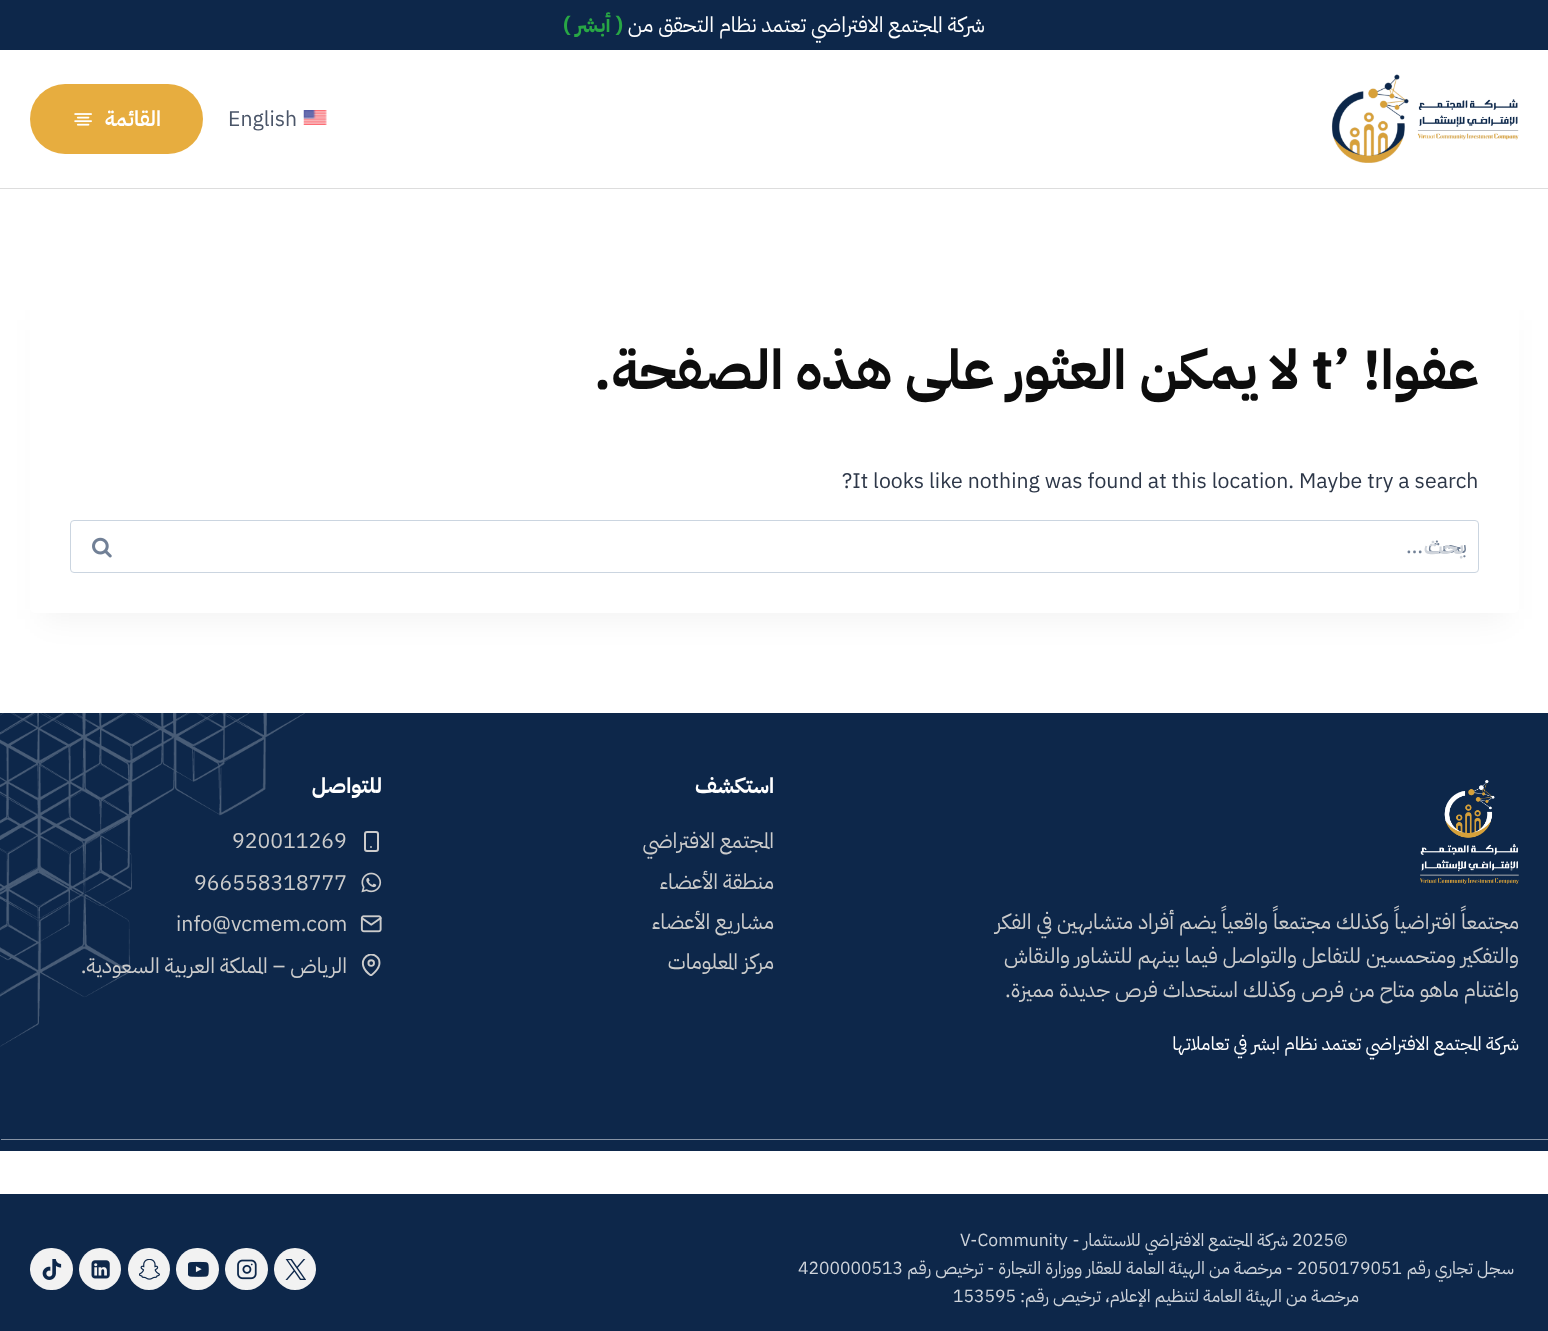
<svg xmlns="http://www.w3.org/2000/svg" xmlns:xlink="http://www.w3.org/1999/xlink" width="1548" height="1331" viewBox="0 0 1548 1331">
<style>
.cls-1{font:21.25px IBM Plex Sans Arabic;direction:rtl;fill:#ffffff}
.cls-2{font:bold 21.25px IBM Plex Sans Arabic;direction:rtl;fill:#28a745}
.cls-3{font:21.25px IBM Plex Sans Arabic;fill:#4a5568}
.cls-4{font:600 21.25px IBM Plex Sans Arabic;direction:rtl;fill:#ffffff}
.cls-5{font:bold 55px IBM Plex Sans Arabic;direction:rtl;fill:#0d0d0d}
.cls-6{font:bold 55px IBM Plex Sans Arabic;fill:#0d0d0d}
.cls-7{font:21.25px IBM Plex Sans Arabic;fill:#2d3748}
.cls-8{font:21.25px IBM Plex Sans Arabic;direction:rtl;fill:#718096}
.cls-9{font:600 21.25px IBM Plex Sans Arabic;direction:rtl;fill:#cfd4db}
.cls-10{font:21.25px IBM Plex Sans Arabic;direction:rtl;fill:#cccccc}
.cls-11{font:18.75px IBM Plex Sans Arabic;direction:rtl;fill:#ffffff}
.cls-12{font:bold 21.25px IBM Plex Sans Arabic;direction:rtl;fill:#ffffff}
.cls-13{font:21.25px IBM Plex Sans Arabic;fill:#cccccc}
.cls-14{font:17.5px IBM Plex Sans Arabic;fill:#cfd4db}
.cls-15{font:17.5px IBM Plex Sans Arabic;direction:rtl;fill:#cfd4db}
</style>
<defs>
<clipPath id="clip1"><rect x="360" y="954" width="23" height="22"/></clipPath>
</defs>
<rect width="100%" height="100%" fill="#ffffff"/>
<rect fill="#0d274a" x="0" y="0" width="1548" height="50"/>
<rect fill="#dddddd" x="0" y="188" width="1548" height="1"/>
<image xlink:href="image0.png" x="1331" y="74" width="188" height="89"/>
<image xlink:href="image1.png" x="303" y="110" width="24" height="15"/>
<rect fill="#e7ad3f" x="30" y="84" width="173" height="70" rx="35"/>
<image xlink:href="image2.png" x="74" y="113" width="18" height="13"/>
<rect fill="#000000" fill-opacity="0.05" filter="blur(15.5px)" x="43" y="320" width="1463" height="299"/>
<rect fill="#ffffff" x="30" y="289" width="1489" height="324" rx="5"/>
<rect fill="none" stroke="#cbd5e0" x="70.5" y="520.5" width="1408" height="52" rx="3.5"/>
<image xlink:href="image3.png" x="92" y="537" width="20" height="21"/>
<rect fill="#0d274a" x="0" y="713" width="1548" height="438"/>
<image xlink:href="image4.png" x="0" y="713" width="305" height="334"/>
<image xlink:href="image5.png" x="1420" y="780" width="99" height="104"/>
<rect fill="none" stroke="#cccccc" stroke-width="2" x="365" y="832" width="13" height="19" rx="2"/>
<path fill="none" stroke="#cccccc" stroke-width="1.9" stroke-linecap="round" stroke-linejoin="round" d="M371 847H371"/>
<image xlink:href="image6.png" x="361" y="872" width="21" height="21"/>
<image xlink:href="image7.png" x="360" y="915" width="22" height="18"/>
<g clip-path="url(#clip1)">
<path fill="none" stroke="#cccccc" stroke-width="1.9" stroke-linecap="round" stroke-linejoin="round" d="M379.5 963C379.5 969.5 371 975.5 371 975.5C353.5 963.5 368.5 948.5 377 957C379 958.5 379.5 961 379.5 963Z"/>
</g>
<circle fill="none" stroke="#cccccc" stroke-width="1.9" cx="371.2" cy="963.1" r="2.8"/>
<rect fill="#8693a5" x="1" y="1139" width="1547" height="1"/>
<rect fill="#0d274a" x="0" y="1194" width="1548" height="137"/>
<circle fill="#f2f2f2" cx="295" cy="1269" r="21"/>
<image xlink:href="image8.png" x="285" y="1259" width="21" height="21"/>
<rect fill="#f2f2f2" x="225" y="1248" width="43" height="42" rx="21"/>
<image xlink:href="image9.png" x="237" y="1259" width="20" height="21"/>
<rect fill="#f2f2f2" x="176" y="1248" width="43" height="42" rx="21"/>
<image xlink:href="image10.png" x="188" y="1261" width="21" height="16"/>
<circle fill="#f2f2f2" cx="149" cy="1269" r="21"/>
<image xlink:href="image11.png" x="139" y="1259" width="21" height="21"/>
<circle fill="#f2f2f2" cx="100" cy="1269" r="21"/>
<image xlink:href="image12.png" x="91" y="1260" width="19" height="19"/>
<rect fill="#f2f2f2" x="30" y="1248" width="43" height="42" rx="21"/>
<image xlink:href="image13.png" x="42" y="1259" width="20" height="21"/>
<text class="cls-1" x="985" y="32">شركة المجتمع الافتراضي تعتمد نظام التحقق من</text>
<text class="cls-2" x="623" y="32">( أبشر )</text>
<text class="cls-3" x="228" y="126">English</text>
<text class="cls-4" x="161" y="126">القائمة</text>
<text class="cls-5" x="1479" y="389">عفوا! ’</text>
<text class="cls-6" x="1312" y="389">t</text>
<text class="cls-5" x="1299" y="389">لا يمكن العثور على هذه الصفحة.</text>
<text class="cls-7" x="842" y="488">?It looks like nothing was found at this location. Maybe try a search</text>
<text class="cls-8" x="1467" y="553">بحث …</text>
<text class="cls-9" x="1464" y="554">بحث</text>
<text class="cls-10"><tspan x="1519" y="929">مجتمعاً افتراضياً وكذلك مجتمعاً واقعياً يضم أفراد متشابهين في الفكر</tspan><tspan x="1519" y="963">والتفكير ومتحمسين للتفاعل والتواصل فيما بينهم للتشاور والنقاش</tspan><tspan x="1519" y="997">واغتنام ماهو متاح من فرص وكذلك استحداث فرص جديدة مميزة.</tspan></text>
<text class="cls-11" x="1519" y="1050">شركة المجتمع الافتراضي تعتمد نظام ابشر في تعاملاتها</text>
<text class="cls-12" x="774" y="793">استكشف</text>
<text class="cls-10"><tspan x="774" y="848">المجتمع الافتراضي</tspan><tspan x="774" y="889">منطقة الأعضاء</tspan><tspan x="774" y="929">مشاريع الأعضاء</tspan><tspan x="774" y="969">مركز المعلومات</tspan></text>
<text class="cls-12" x="382" y="793">للتواصل</text>
<text class="cls-13" x="232" y="848">920011269</text>
<text class="cls-13" x="194" y="890">966558318777</text>
<text class="cls-13" x="176" y="931">info@vcmem.com</text>
<text class="cls-10" x="347" y="973">الرياض – المملكة العربية السعودية.</text>
<text class="cls-14" x="1292" y="1246">2025©</text>
<text class="cls-15" x="1288" y="1246">شركة المجتمع الافتراضي للاستثمار -</text>
<text class="cls-14" x="960" y="1246">V-Community</text>
<text class="cls-15" x="1514" y="1274">سجل تجاري رقم</text>
<text class="cls-14" x="1297" y="1274">2050179051</text>
<text class="cls-15" x="1293" y="1274">- مرخصة من الهيئة العامة للعقار ووزارة التجارة - ترخيص رقم</text>
<text class="cls-14" x="798" y="1274">4200000513</text>
<text class="cls-15" x="1359" y="1302">مرخصة من الهيئة العامة لتنظيم الإعلام، ترخيص رقم:</text>
<text class="cls-14" x="953" y="1302">153595</text>
</svg>
